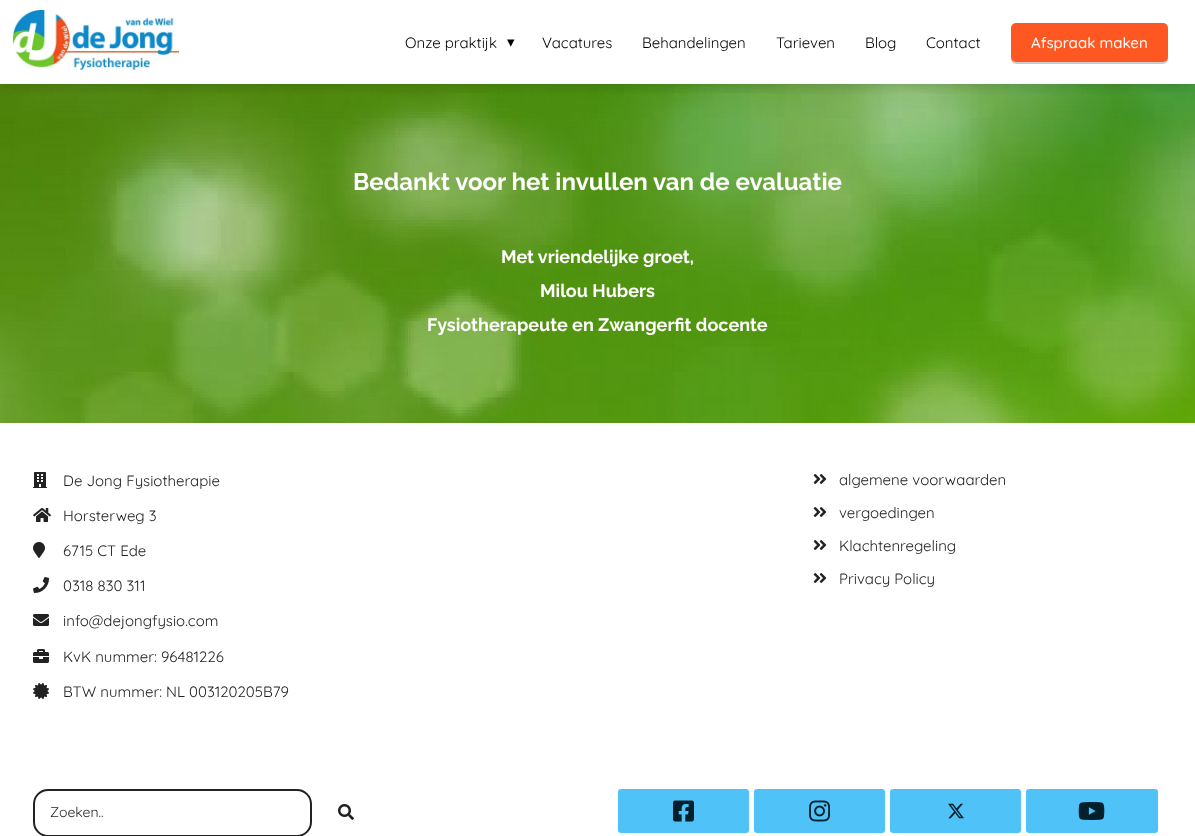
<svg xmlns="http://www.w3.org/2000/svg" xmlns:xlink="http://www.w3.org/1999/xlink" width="1195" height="836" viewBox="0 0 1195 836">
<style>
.cls-1{font:15px Quicksand;fill:#000000}
.cls-2{font:15px DejaVu Sans;fill:#000000}
.cls-3{font:500 15px Quicksand;fill:#ffffff}
.cls-4{font:bold 24px Raleway;fill:#ffffff}
.cls-5{font:bold 18px Raleway;fill:#ffffff}
.cls-6{font:15px Quicksand;fill:#222222}
.cls-7{font:14px Quicksand;fill:#222222}
</style>
<defs>
<clipPath id="clip1"><rect x="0" y="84" width="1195" height="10"/></clipPath>
</defs>
<rect width="100%" height="100%" fill="#ffffff"/>
<image xlink:href="image1.png" x="0" y="84" width="1195" height="339"/>
<g clip-path="url(#clip1)">
<rect fill="#000000" fill-opacity="0.2" filter="blur(7.5px)" x="0" y="0" width="1195" height="84"/>
</g>
<image xlink:href="image0.png" x="13" y="10" width="166" height="60"/>
<rect fill="#000000" fill-opacity="0.2" filter="blur(0.5px)" x="1011" y="25" width="157" height="39" rx="5"/>
<rect fill="#ff5722" x="1011" y="23" width="157" height="39" rx="5"/>
<image xlink:href="image2.png" x="33" y="472" width="14" height="16"/>
<image xlink:href="image3.png" x="33" y="508" width="18" height="14"/>
<image xlink:href="image4.png" x="33" y="542" width="12" height="16"/>
<image xlink:href="image5.png" x="33" y="577" width="16" height="16"/>
<image xlink:href="image6.png" x="33" y="614" width="16" height="12"/>
<image xlink:href="image7.png" x="33" y="649" width="16" height="14"/>
<image xlink:href="image8.png" x="33" y="683" width="16" height="16"/>
<image xlink:href="image9.png" x="813" y="474" width="14" height="10"/>
<image xlink:href="image9.png" x="813" y="507" width="14" height="10"/>
<image xlink:href="image9.png" x="813" y="540" width="14" height="10"/>
<image xlink:href="image9.png" x="813" y="573" width="14" height="10"/>
<rect fill="none" stroke="#222222" stroke-width="2" x="34" y="790" width="277" height="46" rx="14"/>
<image xlink:href="image10.png" x="338" y="804" width="16" height="16"/>
<rect fill="#4fc3f7" x="618" y="789" width="131" height="44" rx="3"/>
<image xlink:href="image11.png" x="673" y="800" width="21" height="22"/>
<rect fill="#4fc3f7" x="754" y="789" width="131" height="44" rx="3"/>
<image xlink:href="image12.png" x="809" y="800" width="22" height="22"/>
<rect fill="#4fc3f7" x="890" y="789" width="131" height="44" rx="3"/>
<image xlink:href="image13.png" x="948" y="803" width="16" height="16"/>
<rect fill="#4fc3f7" x="1026" y="789" width="132" height="44" rx="3"/>
<image xlink:href="image14.png" x="1078" y="802" width="27" height="18"/>
<text class="cls-1" x="405" y="48">Onze praktijk</text>
<text class="cls-2" x="507" y="47">▾</text>
<text class="cls-1" x="542" y="48">Vacatures</text>
<text class="cls-1" x="642" y="48">Behandelingen</text>
<text class="cls-1" x="776" y="48">Tarieven</text>
<text class="cls-1" x="865" y="48">Blog</text>
<text class="cls-1" x="926" y="48">Contact</text>
<text class="cls-3" x="1031" y="48">Afspraak maken</text>
<text class="cls-4" x="353" y="190">Bedankt voor het invullen van de evaluatie</text>
<text class="cls-5" x="501" y="263">Met vriendelijke groet,</text>
<text class="cls-5" x="540" y="297">Milou Hubers</text>
<text class="cls-5" x="427" y="331">Fysiotherapeute en Zwangerfit docente</text>
<text class="cls-6" x="63" y="486">De Jong Fysiotherapie</text>
<text class="cls-6" x="63" y="521">Horsterweg 3</text>
<text class="cls-6" x="63" y="556">6715 CT Ede</text>
<text class="cls-6" x="63" y="591">0318 830 311</text>
<text class="cls-6" x="63" y="626">info@dejongfysio.com</text>
<text class="cls-6" x="63" y="662">KvK nummer: 96481226</text>
<text class="cls-6" x="63" y="697">BTW nummer: NL 003120205B79</text>
<text class="cls-6" x="839" y="485">algemene voorwaarden</text>
<text class="cls-6" x="839" y="518">vergoedingen</text>
<text class="cls-6" x="839" y="551">Klachtenregeling</text>
<text class="cls-6" x="839" y="584">Privacy Policy</text>
<text class="cls-7" x="50" y="817">Zoeken..</text>
</svg>
